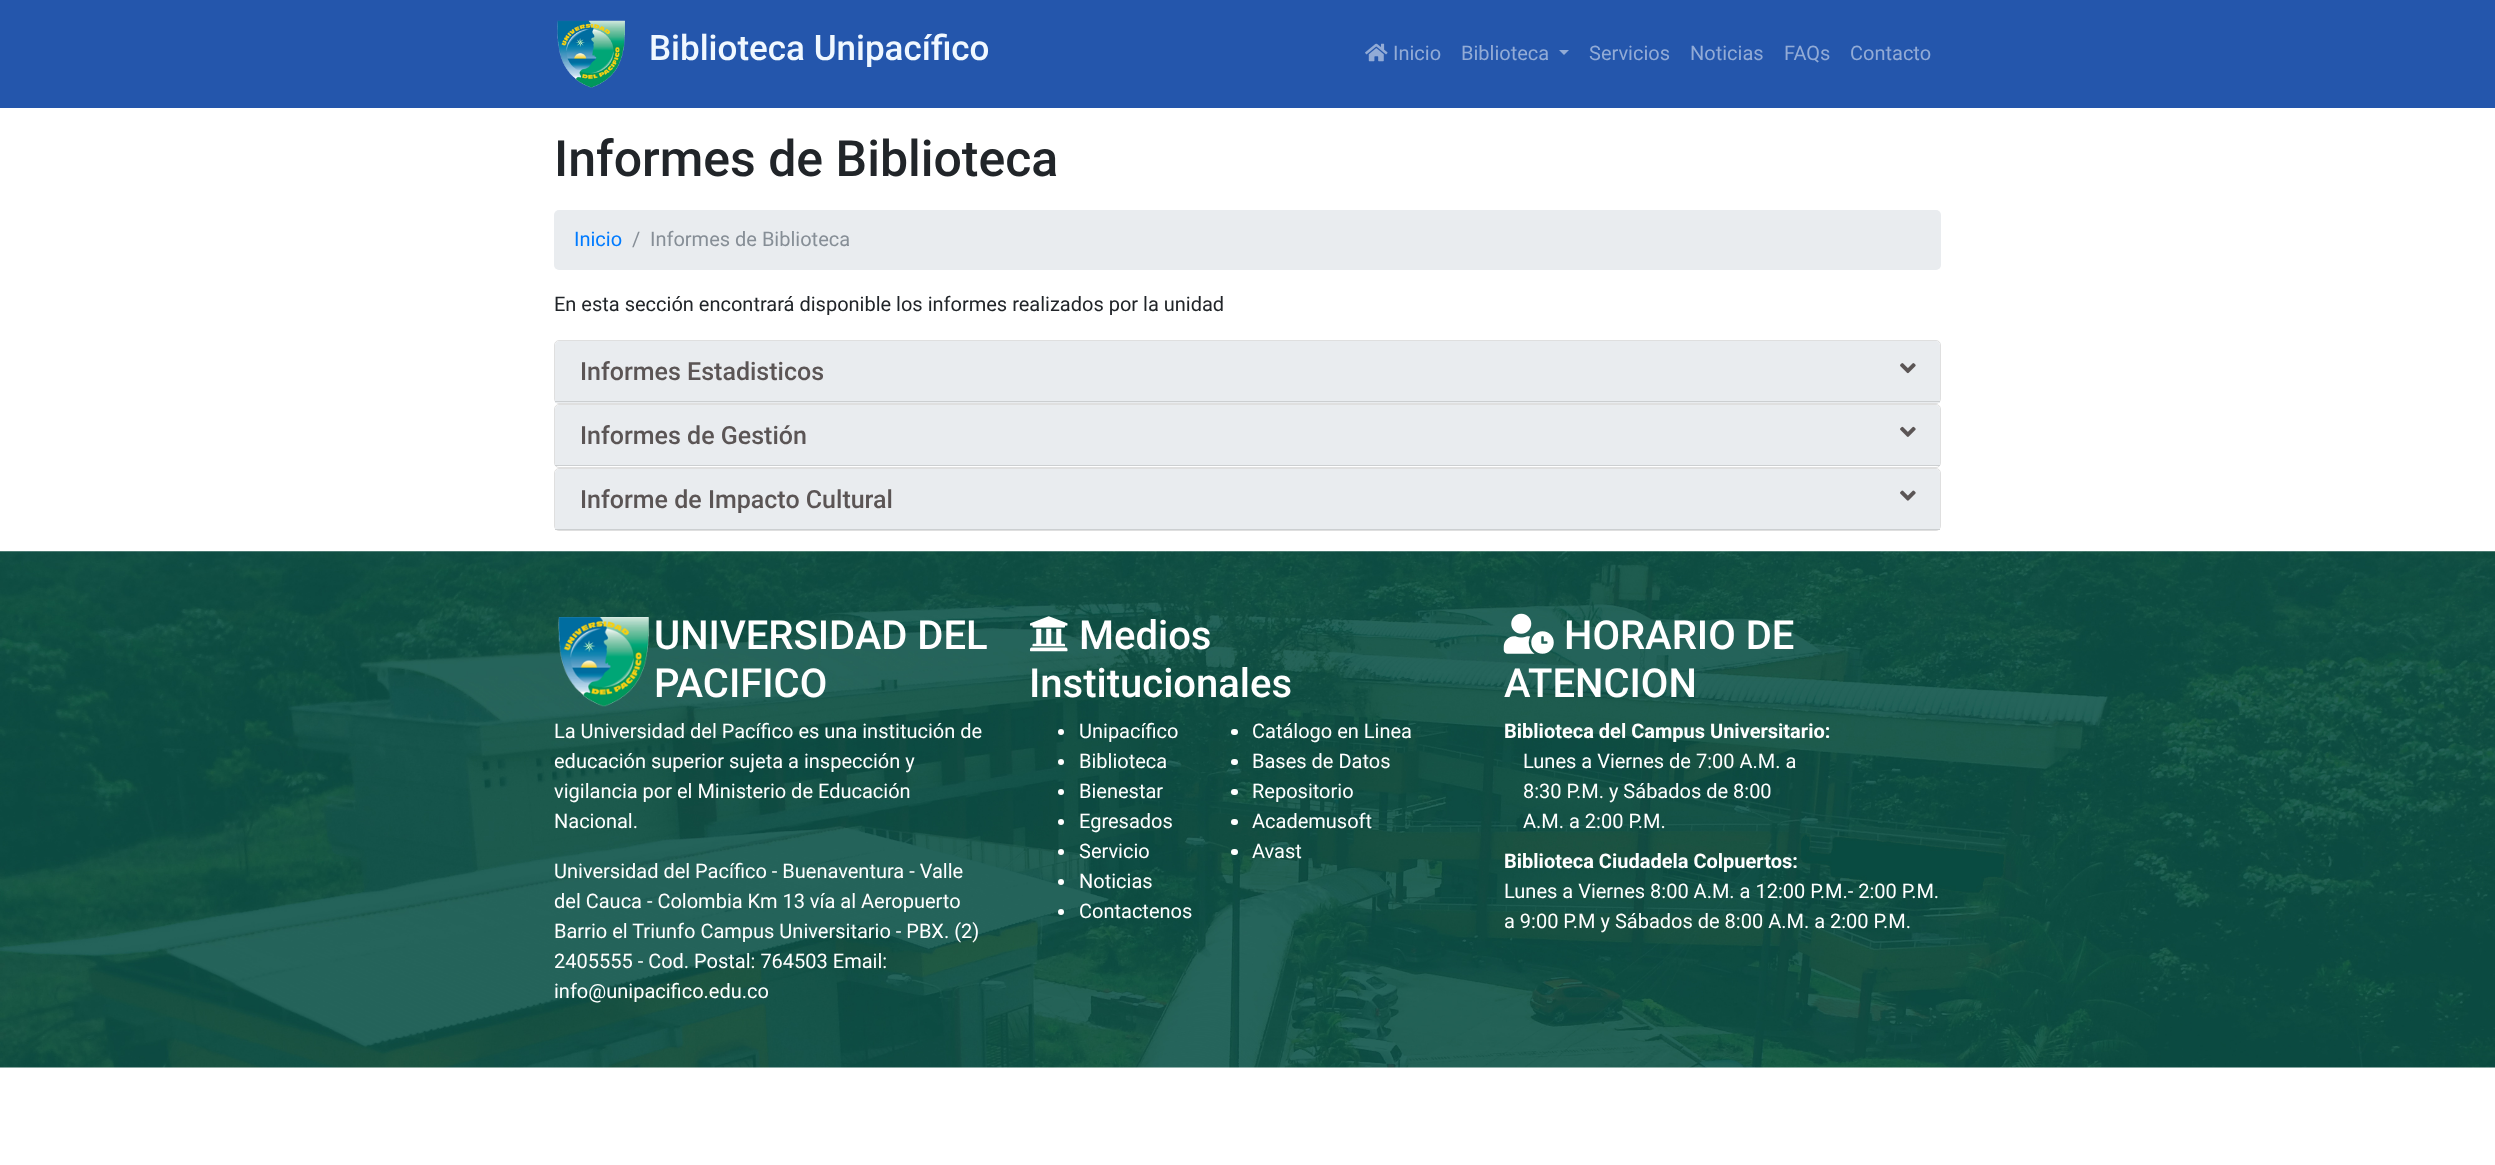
<svg xmlns="http://www.w3.org/2000/svg" xmlns:xlink="http://www.w3.org/1999/xlink" width="2495" height="1165" viewBox="0 0 2495 1165">
<style>
.cls-1{font:500 35px Roboto;fill:#f0f8ff}
.cls-2{font:20px Roboto;fill:#92abd6}
.cls-3{font:500 50px Roboto;fill:#212529}
.cls-4{font:20px Roboto;fill:#007bff}
.cls-5{font:20px Roboto;fill:#868e96}
.cls-6{font:20px Roboto;fill:#212529}
.cls-7{font:500 25px Roboto;fill:#5b5555}
.cls-8{font:500 40px Roboto;fill:#ffffff}
.cls-9{font:20px Roboto;fill:#ffffff}
.cls-10{font:bold 20px Roboto;fill:#ffffff}
</style>
<rect width="100%" height="100%" fill="#ffffff"/>
<rect fill="#2456ac" x="0" y="0" width="2495" height="108"/>
<image xlink:href="image0.png" x="557" y="20" width="68" height="68"/>
<image xlink:href="image1.png" x="1365" y="43" width="23" height="19"/>
<path fill="#92abd6" d="M1559 50H1569L1564 55Z"/>
<rect fill="#e9ecef" x="554" y="210" width="1387" height="60" rx="5"/>
<rect fill="none" stroke="#dfdfdf" x="554.5" y="340.5" width="1386" height="63" rx="4.5"/>
<path fill="#e9ecef" d="M559 341H1936C1938 341 1940 343 1940 345V403H555V345C555 343 557 341 559 341Z"/>
<rect fill="#cccfd1" x="555" y="401" width="1385" height="1"/>
<image xlink:href="image2.png" x="1900" y="363" width="16" height="11"/>
<rect fill="none" stroke="#dfdfdf" x="554.5" y="404.5" width="1386" height="63" rx="4.5"/>
<path fill="#e9ecef" d="M559 405H1936C1938 405 1940 407 1940 409V466H555V409C555 407 557 405 559 405Z"/>
<rect fill="#cccfd1" x="555" y="465" width="1385" height="1"/>
<image xlink:href="image3.png" x="1900" y="426" width="16" height="11"/>
<rect fill="none" stroke="#dfdfdf" x="554.5" y="468.5" width="1386" height="62" rx="4.5"/>
<path fill="#e9ecef" d="M559 469H1936C1938 469 1940 471 1940 473V530H555V473C555 471 557 469 559 469Z"/>
<rect fill="#cccfd1" x="555" y="529" width="1385" height="1"/>
<image xlink:href="image4.png" x="1900" y="490" width="16" height="11"/>
<image xlink:href="image5.png" x="0" y="551" width="2495" height="517"/>
<image xlink:href="image6.png" x="558" y="617" width="91" height="90"/>
<image xlink:href="image7.png" x="1030" y="616" width="38" height="36"/>
<circle fill="#ffffff" cx="1061" cy="732" r="3"/>
<circle fill="#ffffff" cx="1061" cy="762" r="3"/>
<circle fill="#ffffff" cx="1061" cy="792" r="3"/>
<circle fill="#ffffff" cx="1061" cy="822" r="3"/>
<circle fill="#ffffff" cx="1061" cy="852" r="3"/>
<circle fill="#ffffff" cx="1061" cy="882" r="3"/>
<circle fill="#ffffff" cx="1061" cy="912" r="3"/>
<rect fill="#ffffff" x="1231" y="729" width="7" height="6" rx="3"/>
<rect fill="#ffffff" x="1231" y="759" width="7" height="6" rx="3"/>
<rect fill="#ffffff" x="1231" y="789" width="7" height="6" rx="3"/>
<rect fill="#ffffff" x="1231" y="819" width="7" height="6" rx="3"/>
<rect fill="#ffffff" x="1231" y="849" width="7" height="6" rx="3"/>
<image xlink:href="image8.png" x="1503" y="613" width="51" height="41"/>
<text class="cls-1" x="649" y="60">Biblioteca Unipacífico</text>
<text class="cls-2" x="1393" y="60">Inicio</text>
<text class="cls-2" x="1461" y="60">Biblioteca</text>
<text class="cls-2" x="1589" y="60">Servicios</text>
<text class="cls-2" x="1690" y="60">Noticias</text>
<text class="cls-2" x="1784" y="60">FAQs</text>
<text class="cls-2" x="1850" y="60">Contacto</text>
<text class="cls-3" x="554" y="176">Informes de Biblioteca</text>
<text class="cls-4" x="574" y="246">Inicio</text>
<text class="cls-5" x="632" y="246">/</text>
<text class="cls-5" x="650" y="246">Informes de Biblioteca</text>
<text class="cls-6" x="554" y="311">En esta sección encontrará disponible los informes realizados por la unidad</text>
<text class="cls-7" x="580" y="380">Informes Estadisticos</text>
<text class="cls-7" x="580" y="444">Informes de Gestión</text>
<text class="cls-7" x="580" y="508">Informe de Impacto Cultural</text>
<text class="cls-8"><tspan x="654" y="649">UNIVERSIDAD DEL</tspan><tspan x="654" y="697">PACIFICO</tspan></text>
<text class="cls-9"><tspan x="554" y="738">La Universidad del Pacífico es una institución de</tspan><tspan x="554" y="768">educación superior sujeta a inspección y</tspan><tspan x="554" y="798">vigilancia por el Ministerio de Educación</tspan><tspan x="554" y="828">Nacional.</tspan></text>
<text class="cls-9"><tspan x="554" y="878">Universidad del Pacífico - Buenaventura - Valle</tspan><tspan x="554" y="908">del Cauca - Colombia Km 13 vía al Aeropuerto</tspan><tspan x="554" y="938">Barrio el Triunfo Campus Universitario - PBX. (2)</tspan><tspan x="554" y="968">2405555 - Cod. Postal: 764503 Email:</tspan><tspan x="554" y="998">info@unipacifico.edu.co</tspan></text>
<text class="cls-8" x="1079" y="649">Medios</text>
<text class="cls-8" x="1029" y="697">Institucionales</text>
<text class="cls-9"><tspan x="1079" y="738">Unipacífico</tspan><tspan x="1079" y="768">Biblioteca</tspan><tspan x="1079" y="798">Bienestar</tspan><tspan x="1079" y="828">Egresados</tspan><tspan x="1079" y="858">Servicio</tspan><tspan x="1079" y="888">Noticias</tspan><tspan x="1079" y="918">Contactenos</tspan></text>
<text class="cls-9"><tspan x="1252" y="738">Catálogo en Linea</tspan><tspan x="1252" y="768">Bases de Datos</tspan><tspan x="1252" y="798">Repositorio</tspan><tspan x="1252" y="828">Academusoft</tspan><tspan x="1252" y="858">Avast</tspan></text>
<text class="cls-8" x="1564" y="649">HORARIO DE</text>
<text class="cls-8" x="1504" y="697">ATENCION</text>
<text class="cls-10" x="1504" y="738">Biblioteca del Campus Universitario:</text>
<text class="cls-9"><tspan x="1523" y="768">Lunes a Viernes de 7:00 A.M. a</tspan><tspan x="1523" y="798">8:30 P.M. y Sábados de 8:00</tspan><tspan x="1523" y="828">A.M. a 2:00 P.M.</tspan></text>
<text class="cls-10" x="1504" y="868">Biblioteca Ciudadela Colpuertos:</text>
<text class="cls-9"><tspan x="1504" y="898">Lunes a Viernes 8:00 A.M. a 12:00 P.M.- 2:00 P.M.</tspan><tspan x="1504" y="928">a 9:00 P.M y Sábados de 8:00 A.M. a 2:00 P.M.</tspan></text>
</svg>
